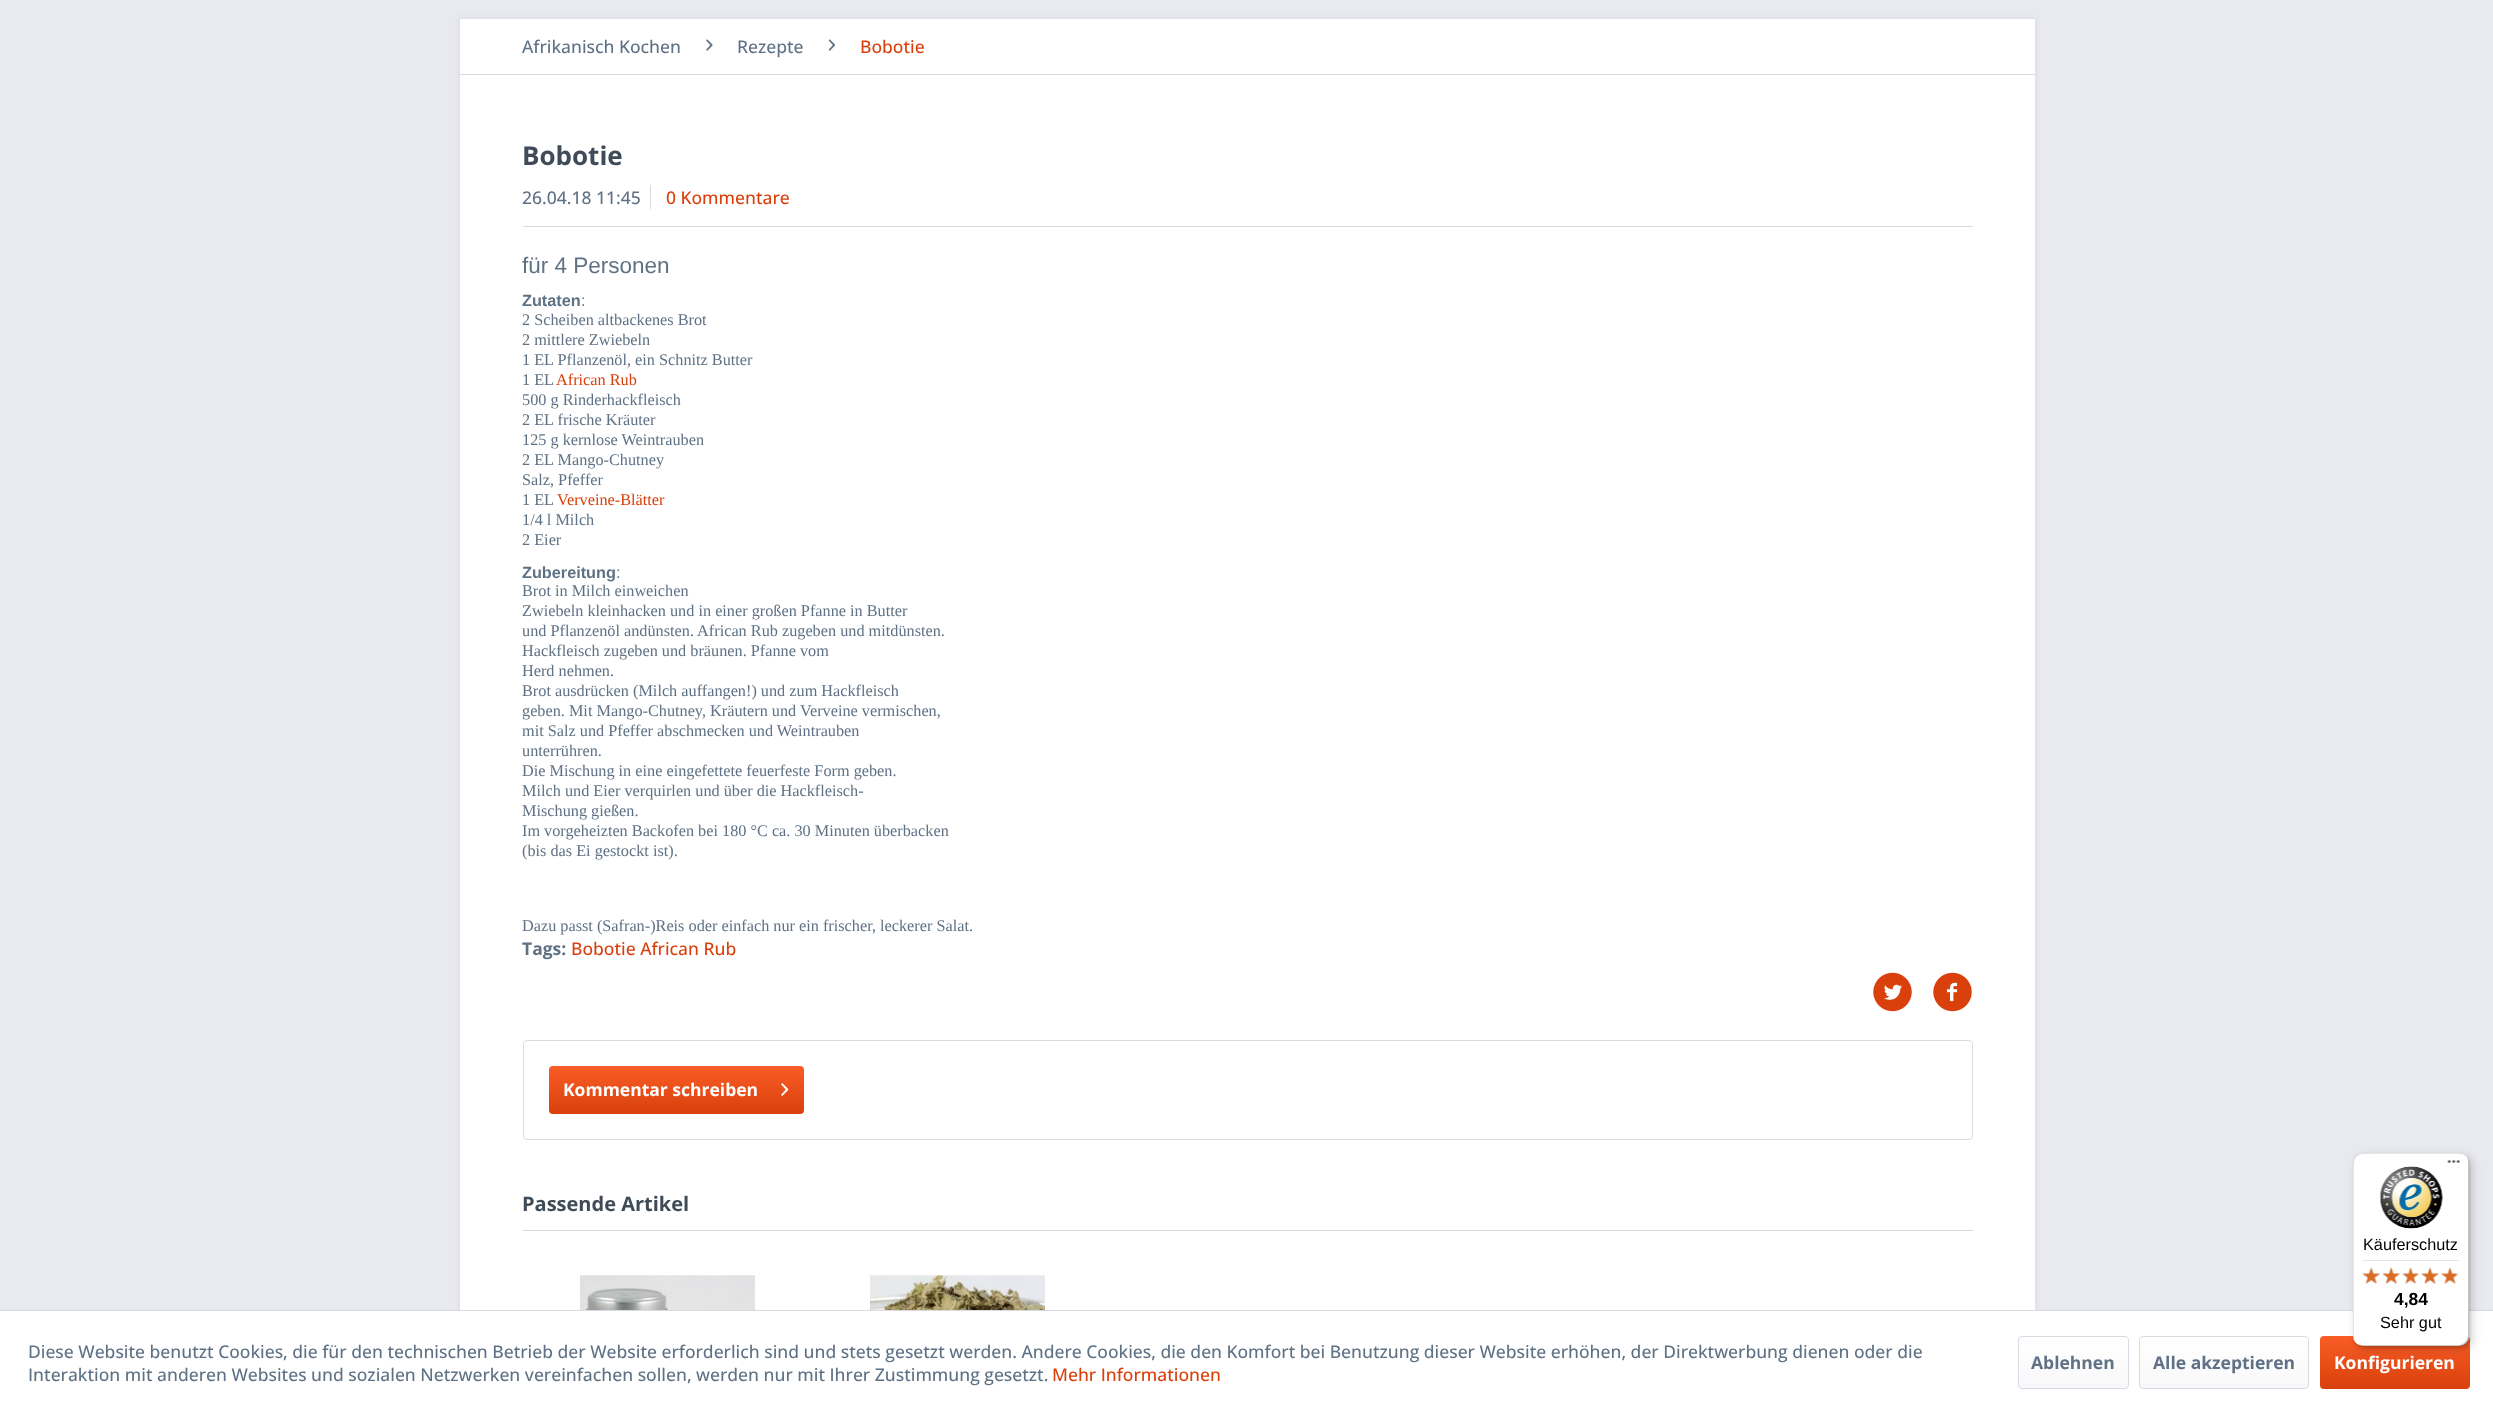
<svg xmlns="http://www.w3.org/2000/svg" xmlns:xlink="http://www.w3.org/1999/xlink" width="2493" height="1413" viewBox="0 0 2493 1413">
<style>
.cls-1{font:500 17.5px Open Sans;fill:#5f7285}
.cls-2{font:500 17.5px Open Sans;fill:#d9400b}
.cls-3{font:bold 26px Open Sans;fill:#3f4c58}
.cls-4{font:22.5px Liberation Sans;fill:#5f7285}
.cls-5{font:bold 16.25px Liberation Sans;fill:#5f7285}
.cls-6{font:16.25px Liberation Sans;fill:#5f7285}
.cls-7{font:16.25px Liberation Serif;fill:#5f7285}
.cls-8{font:16.25px Liberation Serif;fill:#d9400b}
.cls-9{font:bold 17.5px Open Sans;fill:#5f7285}
.cls-10{font:bold 17.5px Open Sans;fill:#ffffff}
.cls-11{font:bold 20px Open Sans;fill:#3f4c58}
.cls-12{font:16.25px Liberation Sans;fill:#000000}
.cls-13{font:bold 17.5px Liberation Sans;fill:#000000}
</style>
<defs>
<linearGradient id="g1" gradientUnits="userSpaceOnUse" x1="676" y1="1066" x2="676" y2="1114"><stop offset="0" stop-color="#fa5d27"/><stop offset="1" stop-color="#d9400b"/></linearGradient>
<linearGradient id="g2" gradientUnits="userSpaceOnUse" x1="2395" y1="1336" x2="2395" y2="1389"><stop offset="0" stop-color="#fa5d27"/><stop offset="1" stop-color="#d9400b"/></linearGradient>
<linearGradient id="g3" gradientUnits="userSpaceOnUse" x1="2073" y1="1338" x2="2073" y2="1388"><stop offset="0" stop-color="#ffffff"/><stop offset="1" stop-color="#f8f8fa"/></linearGradient>
<linearGradient id="g4" gradientUnits="userSpaceOnUse" x1="2224" y1="1338" x2="2224" y2="1388"><stop offset="0" stop-color="#ffffff"/><stop offset="1" stop-color="#f8f8fa"/></linearGradient>
</defs>
<rect width="100%" height="100%" fill="#e9e9f0"/>
<rect fill="#dadae5" filter="blur(2.5px)" x="459" y="18" width="1577" height="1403"/>
<rect fill="#ffffff" x="460" y="19" width="1575" height="1291"/>
<rect fill="#dadae5" x="460" y="74" width="1575" height="1"/>
<image xlink:href="image0.png" x="706" y="39" width="7" height="12"/>
<image xlink:href="image1.png" x="828" y="39" width="7" height="12"/>
<rect fill="#dadae5" x="523" y="226" width="1450" height="1"/>
<rect fill="#dadae5" x="650" y="185" width="1" height="24"/>
<image xlink:href="image2.png" x="1873" y="972" width="39" height="40"/>
<image xlink:href="image3.png" x="1933" y="972" width="39" height="40"/>
<rect fill="none" stroke="#dadae5" x="523.5" y="1040.5" width="1449" height="99" rx="3.5"/>
<rect fill="url(#g1)" x="549" y="1066" width="255" height="48" rx="4"/>
<image xlink:href="image4.png" x="781" y="1083" width="8" height="13"/>
<rect fill="#dadae5" x="523" y="1230" width="1450" height="1"/>
<image xlink:href="image5.png" x="580" y="1275" width="175" height="35"/>
<image xlink:href="image6.png" x="870" y="1275" width="175" height="35"/>
<rect fill="#ffffff" x="0" y="1311" width="2493" height="102"/>
<rect fill="#dadae5" x="0" y="1310" width="2493" height="1"/>
<rect fill="url(#g2)" x="2320" y="1336" width="150" height="53" rx="4"/>
<rect fill="#000000" fill-opacity="0.15" filter="blur(5px)" x="2356" y="1156" width="117" height="194" rx="10"/>
<rect fill="#000000" fill-opacity="0.15" filter="blur(1px)" x="2354" y="1154" width="116" height="194" rx="10"/>
<rect fill="#ffffff" x="2353" y="1153" width="116" height="193" rx="10"/>
<path fill="#000000" fill-opacity="0.1" d="M2364 1154H2460C2462 1154 2464 1154 2465 1155C2464 1154 2461 1153 2459 1153H2363C2357 1153 2353 1157 2353 1163V1336C2353 1338 2354 1340 2355 1342L2354 1338V1164C2354 1158 2358 1154 2364 1154Z"/>
<path fill="#000000" fill-opacity="0.2" d="M2357 1344C2359 1345 2361 1346 2363 1346H2459C2465 1346 2469 1342 2469 1336V1163C2469 1161 2468 1159 2467 1157C2468 1158 2468 1160 2468 1161V1335C2468 1341 2463 1345 2458 1345H2361Z"/>
<path fill="#323232" fill-opacity="0.2" d="M2458 1346H2459C2465 1346 2469 1342 2469 1336V1163C2469 1161 2468 1158 2467 1157C2468 1158 2468 1160 2468 1162V1336C2468 1341 2464 1346 2458 1346Z"/>
<path fill="#ffffff" fill-opacity="0.3" d="M2458 1346H2459C2465 1346 2469 1342 2469 1336V1163C2469 1161 2468 1158 2467 1157C2468 1158 2468 1160 2468 1162V1336C2468 1341 2464 1346 2458 1346Z"/>
<image xlink:href="image7.png" x="2447" y="1160" width="13" height="3"/>
<image xlink:href="image8.png" x="2380" y="1166" width="63" height="63"/>
<rect fill="#e5e5e5" x="2363" y="1260" width="96" height="1"/>
<image xlink:href="image9.png" x="2362" y="1268" width="18" height="15"/>
<image xlink:href="image10.png" x="2383" y="1267" width="17" height="17"/>
<image xlink:href="image11.png" x="2402" y="1268" width="17" height="15"/>
<image xlink:href="image12.png" x="2421" y="1267" width="18" height="17"/>
<image xlink:href="image13.png" x="2441" y="1268" width="18" height="15"/>
<image xlink:href="image14.png" x="2362" y="1267" width="18" height="17"/>
<image xlink:href="image15.png" x="2382" y="1267" width="18" height="17"/>
<image xlink:href="image16.png" x="2402" y="1267" width="17" height="17"/>
<image xlink:href="image17.png" x="2421" y="1267" width="18" height="17"/>
<image xlink:href="image18.png" x="2441" y="1267" width="16" height="17"/>
<rect fill="url(#g3)" x="2019" y="1338" width="109" height="50" rx="2.5"/>
<rect fill="none" stroke="#dadae5" x="2018.5" y="1336.5" width="110" height="52" rx="3.5"/>
<rect fill="url(#g4)" x="2140" y="1338" width="168" height="50" rx="2.5"/>
<rect fill="none" stroke="#dadae5" x="2139.5" y="1336.5" width="169" height="52" rx="3.5"/>
<text class="cls-1" x="522" y="53">Afrikanisch Kochen</text>
<text class="cls-1" x="737" y="53">Rezepte</text>
<text class="cls-2" x="860" y="53">Bobotie</text>
<text class="cls-3" x="522" y="165">Bobotie</text>
<text class="cls-1" x="522" y="204">26.04.18 11:45</text>
<text class="cls-2" x="666" y="204">0 Kommentare</text>
<text class="cls-4" x="522" y="273">für 4 Personen</text>
<text class="cls-5" x="522" y="306">Zutaten</text>
<text class="cls-6" x="581" y="306">:</text>
<text class="cls-7"><tspan x="522" y="325">2 Scheiben altbackenes Brot</tspan><tspan x="522" y="345">2 mittlere Zwiebeln</tspan><tspan x="522" y="365">1 EL Pflanzenöl, ein Schnitz Butter</tspan><tspan x="522" y="385">1 EL</tspan></text>
<text class="cls-8" x="556" y="385">African Rub</text>
<text class="cls-7"><tspan x="522" y="405">500 g Rinderhackfleisch</tspan><tspan x="522" y="425">2 EL frische Kräuter</tspan><tspan x="522" y="445">125 g kernlose Weintrauben</tspan><tspan x="522" y="465">2 EL Mango-Chutney</tspan><tspan x="522" y="485">Salz, Pfeffer</tspan><tspan x="522" y="505">1 EL</tspan></text>
<text class="cls-8" x="557" y="505">Verveine-Blätter</text>
<text class="cls-7"><tspan x="522" y="525">1/4 l Milch</tspan><tspan x="522" y="545">2 Eier</tspan></text>
<text class="cls-5" x="522" y="578">Zubereitung</text>
<text class="cls-6" x="616" y="578">:</text>
<text class="cls-7"><tspan x="522" y="596">Brot in Milch einweichen</tspan><tspan x="522" y="616">Zwiebeln kleinhacken und in einer großen Pfanne in Butter</tspan><tspan x="522" y="636">und Pflanzenöl andünsten. African Rub zugeben und mitdünsten.</tspan><tspan x="522" y="656">Hackfleisch zugeben und bräunen. Pfanne vom</tspan><tspan x="522" y="676">Herd nehmen.</tspan><tspan x="522" y="696">Brot ausdrücken (Milch auffangen!) und zum Hackfleisch</tspan><tspan x="522" y="716">geben. Mit Mango-Chutney, Kräutern und Verveine vermischen,</tspan><tspan x="522" y="736">mit Salz und Pfeffer abschmecken und Weintrauben</tspan><tspan x="522" y="756">unterrühren.</tspan><tspan x="522" y="776">Die Mischung in eine eingefettete feuerfeste Form geben.</tspan><tspan x="522" y="796">Milch und Eier verquirlen und über die Hackfleisch-</tspan><tspan x="522" y="816">Mischung gießen.</tspan><tspan x="522" y="836">Im vorgeheizten Backofen bei 180 °C ca. 30 Minuten überbacken</tspan><tspan x="522" y="856">(bis das Ei gestockt ist).</tspan></text>
<text class="cls-7" x="522" y="931">Dazu passt (Safran-)Reis oder einfach nur ein frischer, leckerer Salat.</text>
<text class="cls-9" x="522" y="955">Tags:</text>
<text class="cls-2" x="571" y="955">Bobotie African Rub</text>
<text class="cls-10" x="563" y="1096">Kommentar schreiben</text>
<text class="cls-11" x="522" y="1211">Passende Artikel</text>
<text class="cls-12" x="2363" y="1250">Käuferschutz</text>
<text class="cls-13" x="2394" y="1305">4,84</text>
<text class="cls-12" x="2380" y="1328">Sehr gut</text>
<text class="cls-1"><tspan x="28" y="1358">Diese Website benutzt Cookies, die für den technischen Betrieb der Website erforderlich sind und stets gesetzt werden. Andere Cookies, die den Komfort bei Benutzung dieser Website erhöhen, der Direktwerbung dienen oder die</tspan><tspan x="28" y="1381">Interaktion mit anderen Websites und sozialen Netzwerken vereinfachen sollen, werden nur mit Ihrer Zustimmung gesetzt.</tspan></text>
<text class="cls-2" x="1052" y="1381">Mehr Informationen</text>
<text class="cls-9" x="2031" y="1369">Ablehnen</text>
<text class="cls-9" x="2153" y="1369">Alle akzeptieren</text>
<text class="cls-10" x="2334" y="1369">Konfigurieren</text>
</svg>
